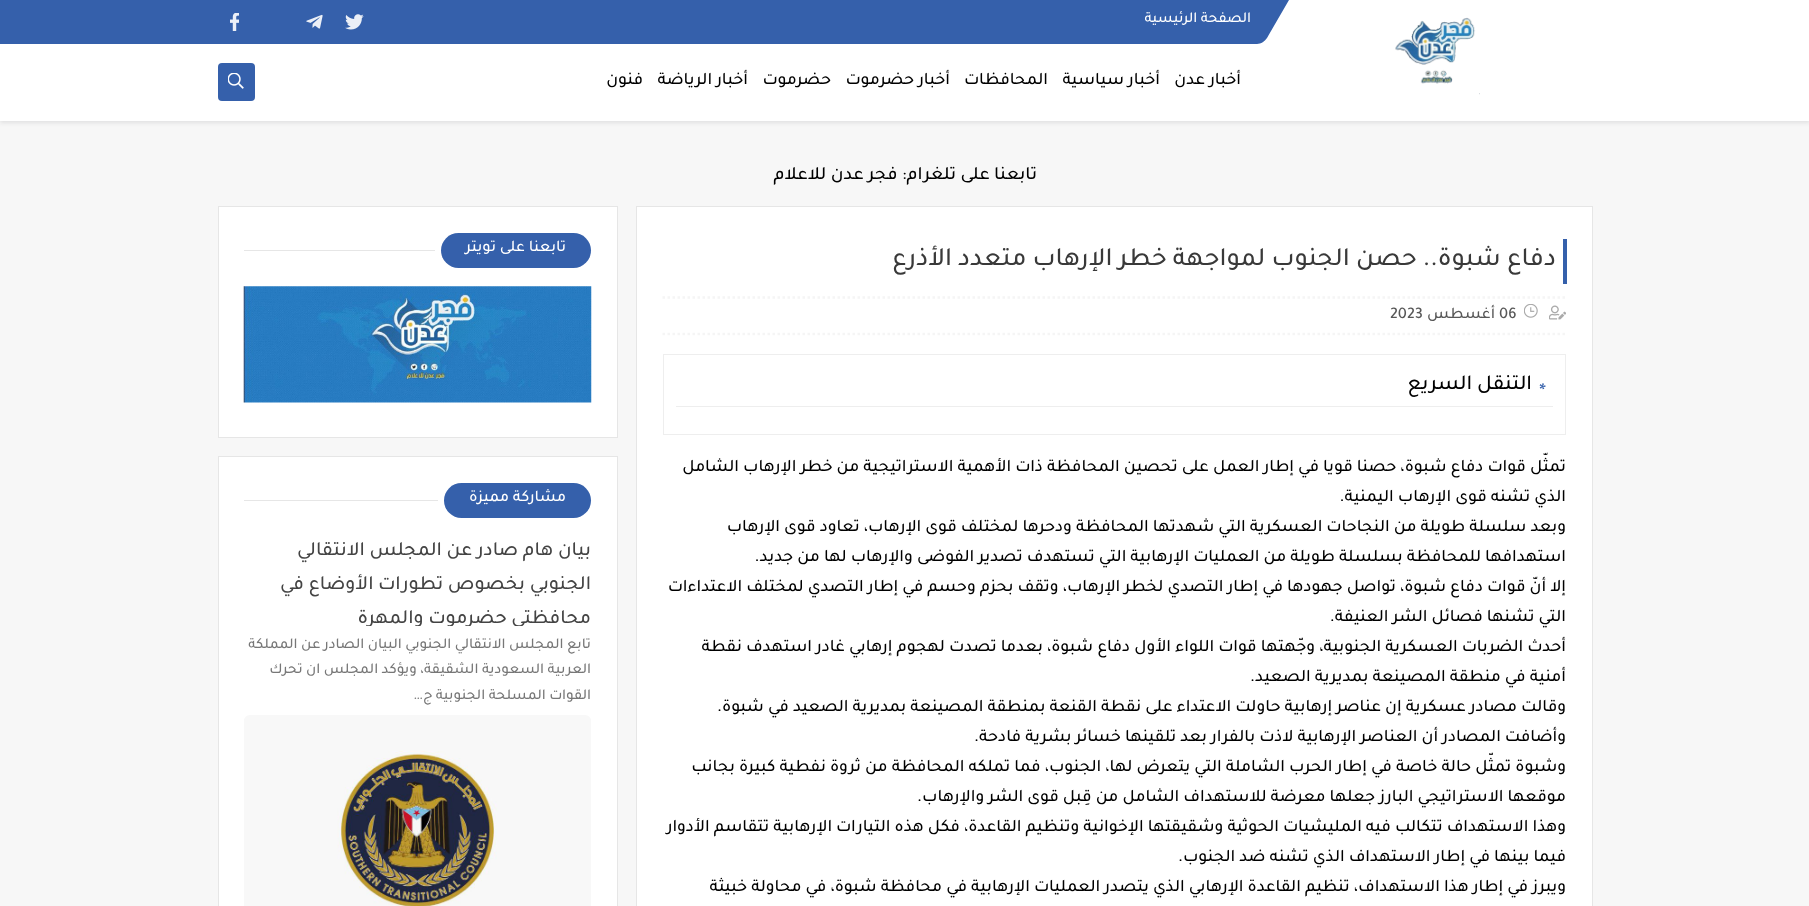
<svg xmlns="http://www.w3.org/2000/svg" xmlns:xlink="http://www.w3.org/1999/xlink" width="1809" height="906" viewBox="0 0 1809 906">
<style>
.cls-1{font:500 15px Tajawal;direction:rtl;fill:#ffffff}
.cls-2{font:500 17.5px Tajawal;direction:rtl;fill:#000000}
.cls-3{font:500 18.75px Tajawal;direction:rtl;fill:#000000}
.cls-4{font:500 26.25px Tajawal;direction:rtl;fill:#393939}
.cls-5{font:500 16.25px Tajawal;fill:#585858}
.cls-6{font:500 16.25px Tajawal;direction:rtl;fill:#585858}
.cls-7{font:500 21.25px Tajawal;fill:#3560ab}
.cls-8{font:500 21.25px Tajawal;direction:rtl;fill:#000000}
.cls-9{font:500 16.25px Tajawal;direction:rtl;fill:#ffffff}
.cls-10{font:500 20px Tajawal;direction:rtl;fill:#444444}
.cls-11{font:500 15px Tajawal;direction:rtl;fill:#777777}
</style>
<defs>
<clipPath id="clip1"><rect x="244" y="536" width="347" height="90"/></clipPath>
</defs>
<rect width="100%" height="100%" fill="#f7f7f7"/>
<rect fill="#202124" fill-opacity="0.1" filter="blur(2px)" x="0" y="1" width="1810" height="122"/>
<rect fill="#ffffff" x="0" y="0" width="1809" height="121"/>
<path fill="#3560ab" d="M-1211 0H1289L1267 38C1265 41 1261 44 1257 44H-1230C-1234 44-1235 41-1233 38Z"/>
<image xlink:href="image0.png" x="345" y="14" width="19" height="16"/>
<image xlink:href="image1.png" x="306" y="14" width="17" height="15"/>
<image xlink:href="image2.png" x="230" y="13" width="9" height="18"/>
<image xlink:href="image3.png" x="1395" y="17" width="85" height="78"/>
<rect fill="#3560ab" x="218" y="63" width="37" height="38" rx="4"/>
<image xlink:href="image4.png" x="228" y="73" width="16" height="16"/>
<rect fill="#ffffff" stroke="#e6e6e6" x="636.5" y="206.5" width="956" height="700"/>
<rect fill="#3560ab" x="1563" y="239" width="4" height="45"/>
<path fill="none" stroke="#f5f5f5" stroke-width="2.5" stroke-dasharray="2.5 2.5" d="M662.5 297.5H1566"/>
<path fill="none" stroke="#f5f5f5" stroke-width="2.5" stroke-dasharray="2.5 2.5" d="M662.5 334H1566"/>
<image xlink:href="image5.png" x="1549" y="305" width="17" height="15"/>
<image xlink:href="image6.png" x="1524" y="304" width="14" height="14"/>
<rect fill="none" stroke="#eeeeee" x="663.5" y="354.5" width="902" height="80"/>
<rect fill="#eeeeee" x="676" y="406" width="877" height="1"/>
<rect fill="#ffffff" stroke="#e6e6e6" x="218.5" y="206.5" width="399" height="231"/>
<rect fill="#e6e6e6" x="244" y="250" width="347" height="1"/>
<rect fill="#3560ab" x="441" y="233" width="150" height="35" rx="17.5"/>
<rect fill="#ffffff" x="435" y="246" width="6" height="10"/>
<image xlink:href="image7.png" x="243" y="286" width="349" height="117"/>
<rect fill="#ffffff" stroke="#e6e6e6" x="218.5" y="456.5" width="399" height="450"/>
<rect fill="#e6e6e6" x="244" y="500" width="347" height="1"/>
<rect fill="#3560ab" x="444" y="483" width="147" height="35" rx="17.5"/>
<rect fill="#ffffff" x="438" y="496" width="6" height="10"/>
<image xlink:href="image8.png" x="244" y="715" width="347" height="191"/>
<text class="cls-1" x="1251" y="22">الصفحة الرئيسية</text>
<text class="cls-2" x="1241" y="84">أخبار عدن</text>
<text class="cls-2" x="1160" y="84">أخبار سياسية</text>
<text class="cls-2" x="1048" y="84">المحافظات</text>
<text class="cls-2" x="950" y="84">أخبار حضرموت</text>
<text class="cls-2" x="831" y="84">حضرموت</text>
<text class="cls-2" x="748" y="84">أخبار الرياضة</text>
<text class="cls-2" x="643" y="84">فنون</text>
<text class="cls-3" x="1037" y="179">تابعنا على تلغرام: فجر عدن للاعلام</text>
<text class="cls-4" x="1556" y="265">دفاع شبوة.. حصن الجنوب لمواجهة خطر الإرهاب متعدد الأذرع</text>
<text class="cls-5" x="1499" y="318">06</text>
<text class="cls-6" x="1495" y="318">أغسطس</text>
<text class="cls-5" x="1390" y="318">2023</text>
<text class="cls-7" x="1539" y="397">*</text>
<text class="cls-8" x="1532" y="389">التنقل السريع</text>
<text class="cls-2"><tspan x="1566" y="471">تمثّل قوات دفاع شبوة، حصنا قويا في إطار العمل على تحصين المحافظة ذات الأهمية الاستراتيجية من خطر الإرهاب الشامل</tspan><tspan x="1566" y="501">الذي تشنه قوى الإرهاب اليمنية.</tspan><tspan x="1566" y="531">وبعد سلسلة طويلة من النجاحات العسكرية التي شهدتها المحافظة ودحرها لمختلف قوى الإرهاب، تعاود قوى الإرهاب</tspan><tspan x="1566" y="561">استهدافها للمحافظة بسلسلة طويلة من العمليات الإرهابية التي تستهدف تصدير الفوضى والإرهاب لها من جديد.</tspan><tspan x="1566" y="591">إلا أنّ قوات دفاع شبوة، تواصل جهودها في إطار التصدي لخطر الإرهاب، وتقف بحزم وحسم في إطار التصدي لمختلف الاعتداءات</tspan><tspan x="1566" y="621">التي تشنها فصائل الشر العنيفة.</tspan><tspan x="1566" y="651">أحدث الضربات العسكرية الجنوبية، وجّهتها قوات اللواء الأول</tspan></text>
<text class="cls-2" x="1130" y="651">دفاع شبوة، بعدما تصدت لهجوم إرهابي غادر استهدف نقطة</text>
<text class="cls-2"><tspan x="1566" y="681">أمنية في منطقة المصينعة بمديرية الصعيد.</tspan><tspan x="1566" y="711">وقالت مصادر عسكرية إن عناصر إرهابية حاولت الاعتداء على نقطة القنعة بمنطقة المصينعة بمديرية الصعيد في شبوة.</tspan><tspan x="1566" y="741">وأضافت المصادر أن العناصر الإرهابية لاذت بالفرار بعد تلقينها خسائر بشرية فادحة.</tspan><tspan x="1566" y="771">وشبوة تمثّل حالة خاصة في إطار الحرب الشاملة التي يتعرض لها، الجنوب، فما تملكه المحافظة من ثروة نفطية كبيرة بجانب</tspan><tspan x="1566" y="801">موقعها الاستراتيجي البارز جعلها معرضة للاستهداف الشامل من قِبل قوى الشر والإرهاب.</tspan><tspan x="1566" y="831">وهذا الاستهداف تتكالب فيه المليشيات الحوثية وشقيقتها الإخوانية وتنظيم القاعدة، فكل هذه التيارات الإرهابية تتقاسم الأدوار</tspan><tspan x="1566" y="861">فيما بينها في إطار الاستهداف الذي تشنه ضد الجنوب.</tspan><tspan x="1566" y="891">ويبرز في إطار هذا الاستهداف، تنظيم القاعدة الإرهابي الذي يتصدر العمليات الإرهابية في محافظة شبوة، في محاولة خبيثة</tspan></text>
<text class="cls-9" x="566" y="251">تابعنا على تويتر</text>
<text class="cls-9" x="566" y="501">مشاركة مميزة</text>
<text class="cls-10"><tspan x="591" y="555">بيان هام صادر عن المجلس الانتقالي</tspan><tspan x="591" y="589">الجنوبي بخصوص تطورات الأوضاع في</tspan></text>
<g clip-path="url(#clip1)">
<text class="cls-10" x="591" y="623">محافظتي حضرموت والمهرة</text>
</g>
<text class="cls-11"><tspan x="591" y="648">تابع المجلس الانتقالي الجنوبي البيان الصادر عن المملكة</tspan><tspan x="591" y="673">العربية السعودية الشقيقة، ويؤكد المجلس ان تحرك</tspan><tspan x="591" y="699">القوات المسلحة الجنوبية ج…</tspan></text>
</svg>
